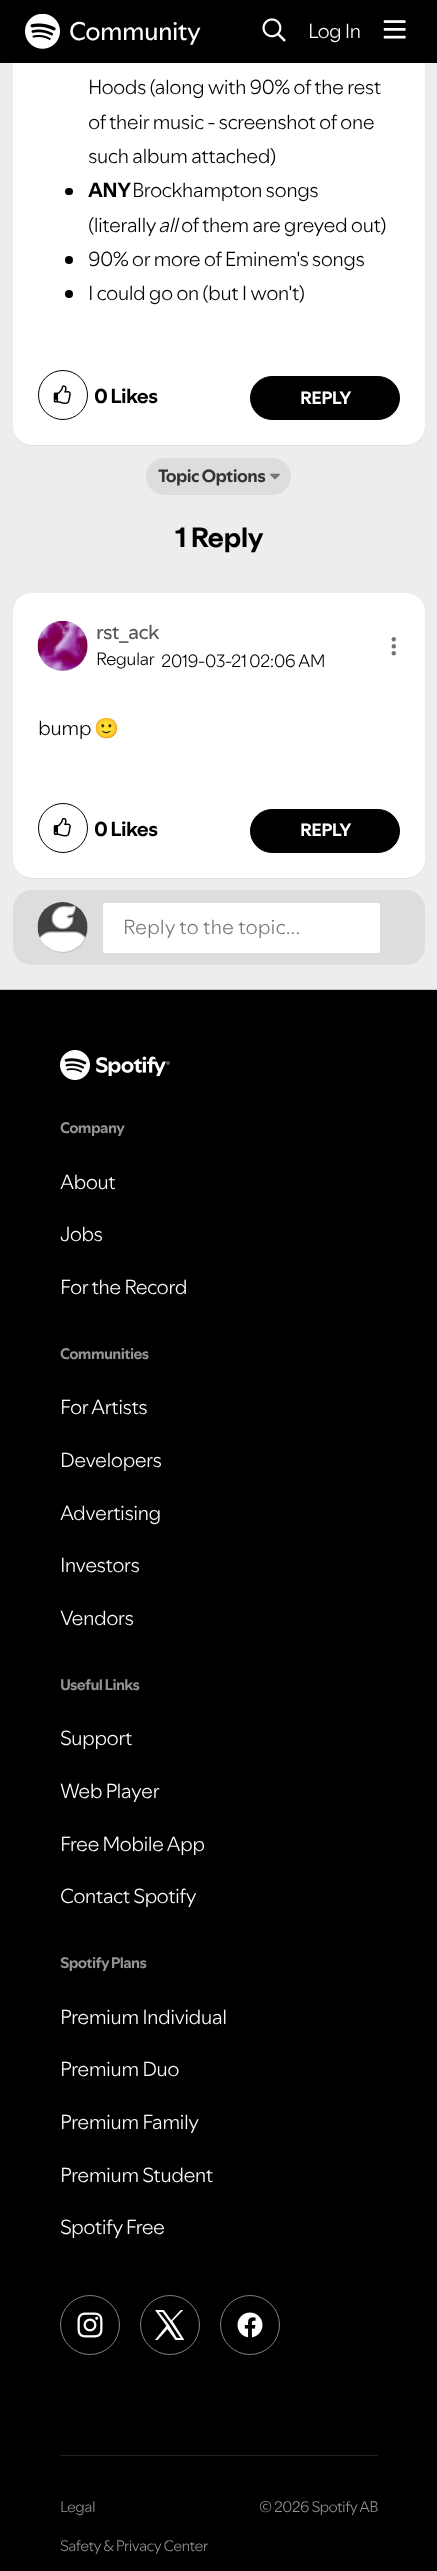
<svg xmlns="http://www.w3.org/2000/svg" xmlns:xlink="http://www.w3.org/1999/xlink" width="437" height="2571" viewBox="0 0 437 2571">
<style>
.cls-1{font:25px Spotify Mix;letter-spacing:-0.6px;fill:#ffffff}
.cls-2{font:300 20px Spotify Mix;letter-spacing:-0.6px;fill:#ffffff}
.cls-3{font:300 20px Spotify Mix;letter-spacing:-0.6px;fill:#000000}
.cls-4{font:bold 20px Spotify Mix;letter-spacing:-0.6px;fill:#000000}
.cls-5{font:italic 300 20px Spotify Mix;letter-spacing:-0.6px;fill:#000000}
.cls-6{font:bold 17.5px Spotify Mix;letter-spacing:-0.6px;fill:#ffffff}
.cls-7{font:bold 17.5px Spotify Mix;letter-spacing:-0.6px;fill:#333333}
.cls-8{font:bold 27.5px Spotify Mix;letter-spacing:-0.6px;fill:#000000}
.cls-9{font:20px Spotify Mix;letter-spacing:-0.6px;fill:#555555}
.cls-10{font:300 17.5px Spotify Mix;letter-spacing:-0.6px;fill:#000000}
.cls-11{font:20px Noto Color Emoji;letter-spacing:-0.6px;fill:#000000}
.cls-12{font:300 20px Spotify Mix;fill:#767676}
.cls-13{font:bold 15px Spotify Mix;letter-spacing:-0.6px;fill:#939393}
.cls-14{font:300 15px Spotify Mix;letter-spacing:-0.6px;fill:#939393}
</style>
<rect width="100%" height="100%" fill="#ededed"/>
<rect fill="#000000" fill-opacity="0.05" filter="blur(0.5px)" x="13" y="-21" width="412" height="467" rx="19"/>
<rect fill="#ffffff" x="13" y="-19" width="412" height="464" rx="19"/>
<rect fill="#000000" x="0" y="0" width="437" height="63"/>
<image xlink:href="image0.png" x="25" y="14" width="35" height="35"/>
<image xlink:href="image1.png" x="262" y="18" width="24" height="24"/>
<image xlink:href="image2.png" x="383" y="20" width="23" height="19"/>
<rect fill="#000000" x="65" y="188" width="8" height="7" rx="3.5"/>
<circle fill="#000000" cx="69" cy="260" r="4"/>
<circle fill="#000000" cx="69" cy="294" r="4"/>
<circle fill="none" stroke="#000000" cx="63" cy="395" r="24.5"/>
<image xlink:href="image3.png" x="53" y="385" width="18" height="19"/>
<rect fill="#000000" stroke="#000000" x="250.5" y="376.5" width="149" height="43" rx="21.5"/>
<rect fill="#dddddd" x="146" y="458" width="145" height="37" rx="18.5"/>
<image xlink:href="image4.png" x="270" y="473" width="10" height="7"/>
<rect fill="#000000" fill-opacity="0.05" filter="blur(0.5px)" x="13" y="594" width="412" height="285" rx="19"/>
<rect fill="#ffffff" x="13" y="593" width="412" height="285" rx="19"/>
<rect fill="#c4c4c4" filter="blur(0.5px)" x="38" y="621" width="50" height="50" rx="25"/>
<image xlink:href="image5.png" x="37" y="620" width="51" height="51"/>
<circle fill="#747474" cx="393.8" cy="639.3" r="2.2"/>
<circle fill="#747474" cx="393.8" cy="646.2" r="2.2"/>
<circle fill="#747474" cx="393.8" cy="653.2" r="2.2"/>
<circle fill="none" stroke="#000000" cx="63" cy="828" r="24.5"/>
<image xlink:href="image6.png" x="53" y="817" width="18" height="20"/>
<rect fill="#000000" stroke="#000000" x="250.5" y="809.5" width="149" height="43" rx="21.5"/>
<rect fill="#dddddd" x="13" y="890" width="412" height="75" rx="19"/>
<rect fill="#c4c4c4" filter="blur(0.5px)" x="38" y="903" width="50" height="50" rx="25"/>
<image xlink:href="image7.png" x="37" y="902" width="51" height="50"/>
<rect fill="#ffffff" x="103" y="903" width="277" height="50" rx="2.5"/>
<rect fill="#c4c4c4" x="0" y="989" width="437" height="1"/>
<rect fill="#000000" x="0" y="990" width="437" height="1581"/>
<image xlink:href="image8.png" x="60" y="1050" width="110" height="30"/>
<circle fill="none" stroke="#818181" cx="90" cy="2325" r="29.5"/>
<image xlink:href="image9.png" x="77" y="2312" width="26" height="26"/>
<circle fill="none" stroke="#818181" cx="170" cy="2325" r="29.5"/>
<image xlink:href="image10.png" x="155" y="2310" width="30" height="30"/>
<circle fill="none" stroke="#818181" cx="250" cy="2325" r="29.5"/>
<image xlink:href="image11.png" x="237" y="2312" width="26" height="26"/>
<rect fill="#1f1f1f" x="60" y="2455" width="318" height="1"/>
<text class="cls-1" x="69" y="40">Community</text>
<text class="cls-2" x="308" y="38">Log In</text>
<text class="cls-3"><tspan x="88" y="94">Hoods (along with 90% of the rest</tspan><tspan x="88" y="129">of their music - screenshot of one</tspan><tspan x="88" y="163">such album attached)</tspan></text>
<text class="cls-4" x="88" y="197">ANY</text>
<text class="cls-3" x="132" y="197">Brockhampton songs</text>
<text class="cls-3" x="88" y="232">(literally</text>
<text class="cls-5" x="158" y="232">all</text>
<text class="cls-3" x="181" y="232">of them are greyed out)</text>
<text class="cls-3"><tspan x="88" y="266">90% or more of Eminem's songs</tspan><tspan x="88" y="300">I could go on (but I won't)</tspan></text>
<text class="cls-4" x="94" y="403">0 Likes</text>
<text class="cls-6" x="300" y="404">REPLY</text>
<text class="cls-7" x="158" y="482">Topic Options</text>
<text class="cls-8" x="175" y="547">1 Reply</text>
<text class="cls-9" x="96" y="639">rst_ack</text>
<text class="cls-10" x="96" y="665">Regular</text>
<text class="cls-10" x="161" y="667">2019-03-21</text>
<text class="cls-10" x="249" y="667">02:06 AM</text>
<text class="cls-3" x="38" y="735">bump</text>
<text class="cls-11" x="94" y="735">🙂</text>
<text class="cls-4" x="94" y="836">0 Likes</text>
<text class="cls-6" x="300" y="836">REPLY</text>
<text class="cls-12" x="123" y="934">Reply to the topic...</text>
<text class="cls-13" x="60" y="1133">Company</text>
<text class="cls-2" x="60" y="1189">About</text>
<text class="cls-2" x="60" y="1241">Jobs</text>
<text class="cls-2" x="60" y="1294">For the Record</text>
<text class="cls-13" x="60" y="1359">Communities</text>
<text class="cls-2" x="60" y="1414">For Artists</text>
<text class="cls-2" x="60" y="1467">Developers</text>
<text class="cls-2" x="60" y="1520">Advertising</text>
<text class="cls-2" x="60" y="1572">Investors</text>
<text class="cls-2" x="60" y="1625">Vendors</text>
<text class="cls-13" x="60" y="1690">Useful Links</text>
<text class="cls-2" x="60" y="1745">Support</text>
<text class="cls-2" x="60" y="1798">Web Player</text>
<text class="cls-2" x="60" y="1851">Free Mobile App</text>
<text class="cls-2" x="60" y="1903">Contact Spotify</text>
<text class="cls-13" x="60" y="1968">Spotify Plans</text>
<text class="cls-2" x="60" y="2024">Premium Individual</text>
<text class="cls-2" x="60" y="2076">Premium Duo</text>
<text class="cls-2" x="60" y="2129">Premium Family</text>
<text class="cls-2" x="60" y="2182">Premium Student</text>
<text class="cls-2" x="60" y="2234">Spotify Free</text>
<text class="cls-14" x="60" y="2512">Legal</text>
<text class="cls-14" x="60" y="2551">Safety &amp; Privacy Center</text>
<text class="cls-14" x="259" y="2512">© 2026 Spotify AB</text>
</svg>
